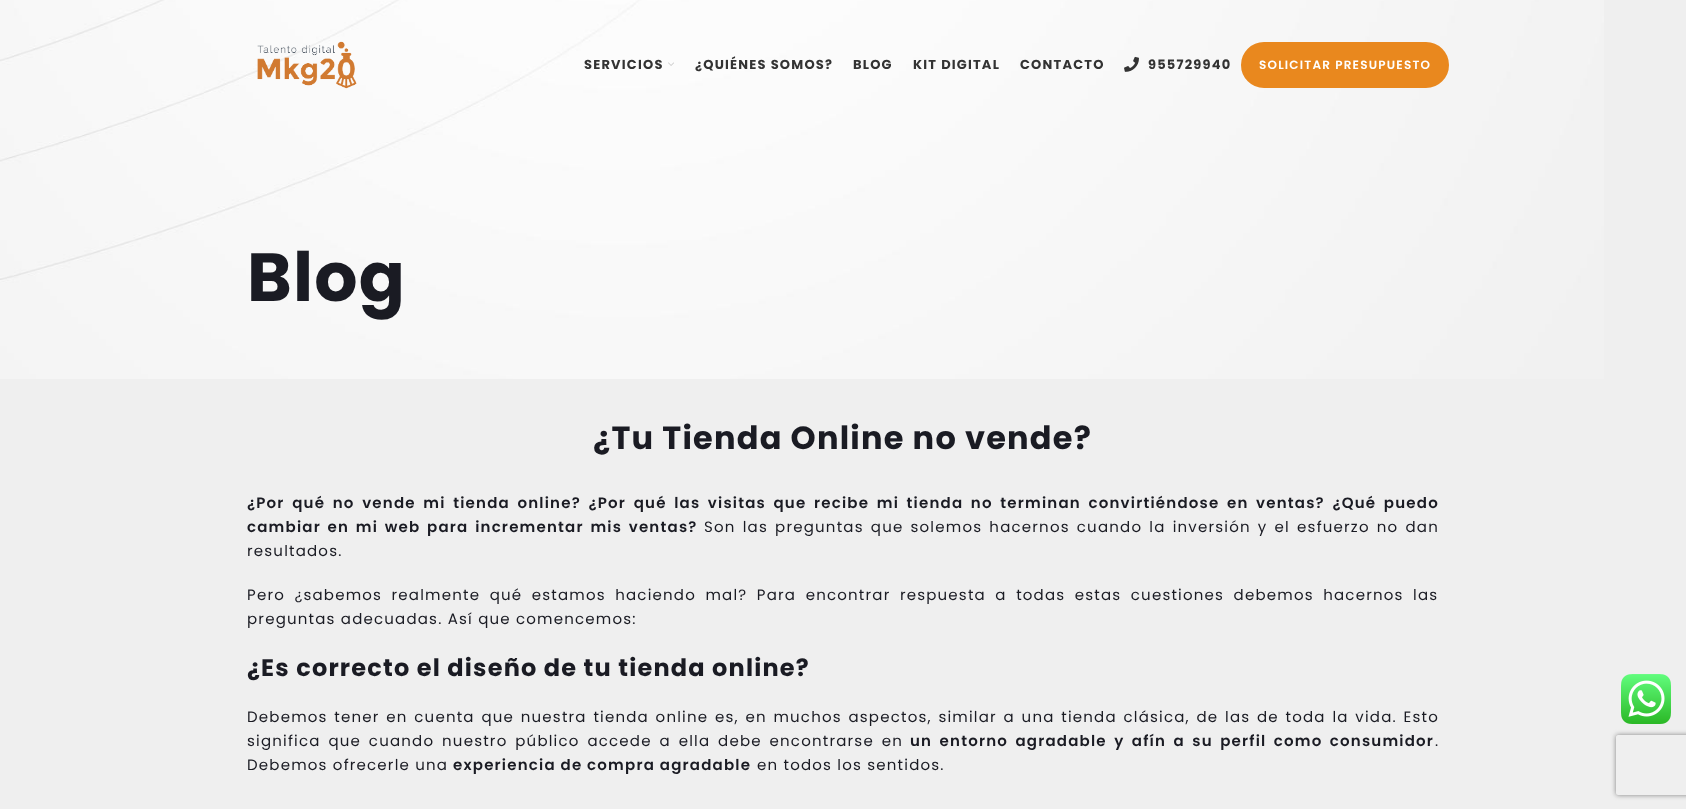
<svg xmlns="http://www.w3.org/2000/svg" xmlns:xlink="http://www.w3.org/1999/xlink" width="1686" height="809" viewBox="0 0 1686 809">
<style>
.cls-1{font:bold 13px Poppins;letter-spacing:1.2px;fill:#333333}
.cls-2{font:600 12px Poppins;letter-spacing:1.2px;fill:#ffffff}
.cls-3{font:bold 68px Poppins;letter-spacing:1.2px;fill:#1a1b23}
.cls-4{font:bold 32px Poppins;letter-spacing:1.2px;fill:#1a1b23}
.cls-5{font:600 15px Poppins;letter-spacing:1.2px;fill:#1a1b23}
.cls-6{font:15px Poppins;letter-spacing:1.2px;fill:#1a1b23}
.cls-7{font:bold 24px Poppins;letter-spacing:1.2px;fill:#1a1b23}
</style>
<defs>
<clipPath id="clip1"><path d="M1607 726H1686V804H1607ZM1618 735H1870C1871 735 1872 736 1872 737V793C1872 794 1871 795 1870 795H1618C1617 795 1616 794 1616 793V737C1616 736 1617 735 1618 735Z" clip-rule="evenodd"/></clipPath>
</defs>
<rect width="100%" height="100%" fill="#efefef"/>
<image xlink:href="image3.png" x="0" y="0" width="1604" height="379"/>
<image xlink:href="image0.png" x="257" y="41" width="100" height="48"/>
<image xlink:href="image1.png" x="668" y="62" width="6" height="4"/>
<image xlink:href="image2.png" x="1124" y="56" width="15" height="16"/>
<rect fill="#e9881e" stroke="#e9881e" stroke-width="3" x="1242.5" y="43.5" width="205" height="43" rx="21.5"/>
<image xlink:href="image4.png" x="1621" y="674" width="50" height="50"/>
<g clip-path="url(#clip1)">
<rect fill="#808080" filter="blur(2.5px)" x="1616" y="735" width="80" height="60" rx="2"/>
</g>
<text class="cls-1" x="584" y="69">SERVICIOS</text>
<text class="cls-1" x="695" y="69">¿QUIÉNES SOMOS?</text>
<text class="cls-1" x="853" y="69">BLOG</text>
<text class="cls-1" x="913" y="69">KIT DIGITAL</text>
<text class="cls-1" x="1020" y="69">CONTACTO</text>
<text class="cls-1" x="1148" y="69">955729940</text>
<text class="cls-2" x="1259" y="69">SOLICITAR PRESUPUESTO</text>
<text class="cls-3" x="247" y="301">Blog</text>
<text class="cls-4" x="593" y="449">¿Tu Tienda Online no vende?</text>
<text class="cls-5"><tspan x="247" y="508" word-spacing="2.8">¿Por qué no vende mi tienda online? ¿Por qué las visitas que recibe mi tienda no terminan convirtiéndose en ventas? ¿Qué puedo</tspan><tspan x="247" y="532" word-spacing="1.9">cambiar en mi web para incrementar mis ventas?</tspan></text>
<text class="cls-6" x="704" y="532" word-spacing="1.9">Son las preguntas que solemos hacernos cuando la inversión y el esfuerzo no dan</text>
<text class="cls-6" x="247" y="556">resultados.</text>
<text class="cls-6"><tspan x="247" y="600" word-spacing="4.25">Pero ¿sabemos realmente qué estamos haciendo mal? Para encontrar respuesta a todas estas cuestiones debemos hacernos las</tspan><tspan x="247" y="624">preguntas adecuadas. Así que comencemos:</tspan></text>
<text class="cls-7" x="247" y="676">¿Es correcto el diseño de tu tienda online?</text>
<text class="cls-6"><tspan x="247" y="722" word-spacing="1.5">Debemos tener en cuenta que nuestra tienda online es, en muchos aspectos, similar a una tienda clásica, de las de toda la vida. Esto</tspan><tspan x="247" y="746" word-spacing="2.6">significa que cuando nuestro público accede a ella debe encontrarse en</tspan></text>
<text class="cls-5" x="910" y="746" word-spacing="2.6">un entorno agradable y afín a su perfil como consumidor</text>
<text class="cls-6" x="1435" y="746">.</text>
<text class="cls-6" x="247" y="770">Debemos ofrecerle una</text>
<text class="cls-5" x="453" y="770">experiencia de compra agradable</text>
<text class="cls-6" x="757" y="770">en todos los sentidos.</text>
</svg>
